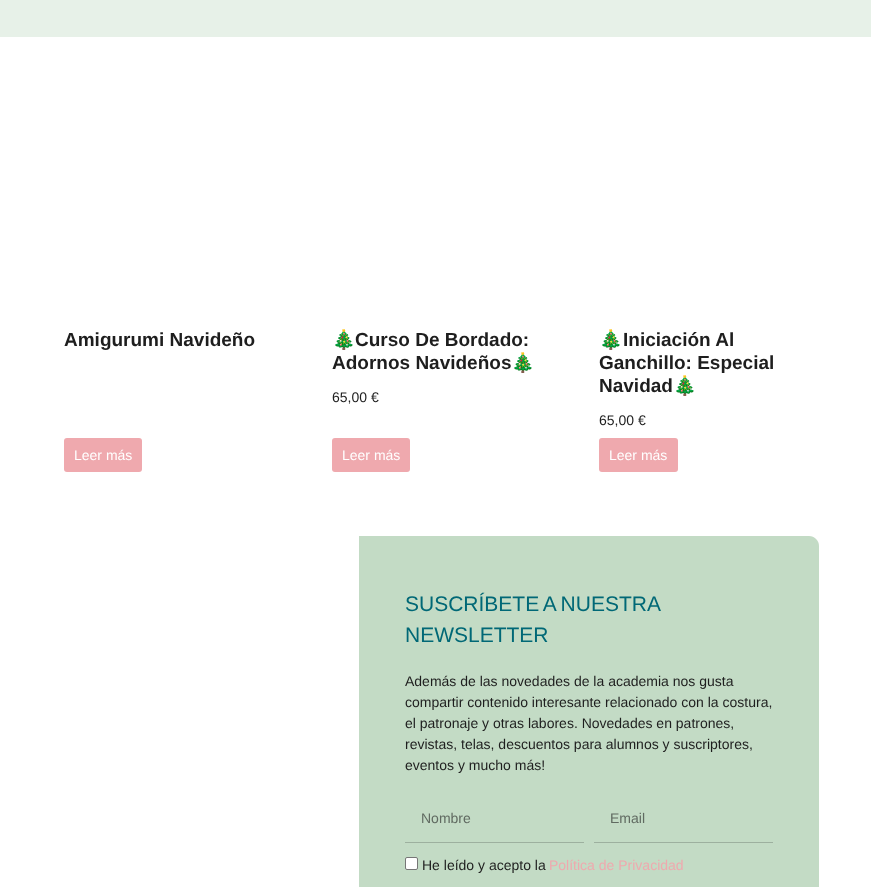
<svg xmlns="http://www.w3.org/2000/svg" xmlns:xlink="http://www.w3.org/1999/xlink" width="871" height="887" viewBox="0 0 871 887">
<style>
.cls-1{font:bold 19px Liberation Sans;fill:#1e1e1e}
.cls-2{font:14px Liberation Sans;fill:#ffffff}
.cls-3{font:bold 19px Noto Color Emoji;fill:#1e1e1e}
.cls-4{font:14px Liberation Sans;fill:#1e1e1e}
.cls-5{font:21px Liberation Sans;fill:#006876}
.cls-6{font:14px Liberation Sans;fill:#606a61}
.cls-7{font:14px Liberation Sans;fill:#efa9ae}
</style>
<rect width="100%" height="100%" fill="#ffffff"/>
<rect fill="#e7f1e8" x="0" y="0" width="871" height="37"/>
<rect fill="#efa9ae" x="64" y="438" width="78" height="34" rx="3"/>
<rect fill="#efa9ae" x="332" y="438" width="78" height="34" rx="3"/>
<rect fill="#efa9ae" x="599" y="438" width="79" height="34" rx="3"/>
<path fill="#c3dbc5" d="M359 536H809C814.5 536 819 540.5 819 546V887C819 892.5 814.5 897 809 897H359Z"/>
<rect fill="#9db09f" x="405" y="842" width="179" height="1"/>
<rect fill="#9db09f" x="594" y="842" width="179" height="1"/>
<rect fill="#ffffff" stroke="#767676" x="405.5" y="857.5" width="12" height="12" rx="1.5"/>
<text class="cls-1" x="64" y="346">Amigurumi Navideño</text>
<text class="cls-2" x="74" y="460">Leer más</text>
<text class="cls-3" x="332" y="346">🎄</text>
<text class="cls-1" x="355" y="346">Curso De Bordado:</text>
<text class="cls-1" x="332" y="369">Adornos Navideños</text>
<text class="cls-3" x="511" y="369">🎄</text>
<text class="cls-4" x="332" y="402">65,00 €</text>
<text class="cls-2" x="342" y="460">Leer más</text>
<text class="cls-3" x="599" y="346">🎄</text>
<text class="cls-1" x="623" y="346">Iniciación Al</text>
<text class="cls-1"><tspan x="599" y="369">Ganchillo: Especial</tspan><tspan x="599" y="392">Navidad</tspan></text>
<text class="cls-3" x="673" y="392">🎄</text>
<text class="cls-4" x="599" y="425">65,00 €</text>
<text class="cls-2" x="609" y="460">Leer más</text>
<text class="cls-5"><tspan x="405" y="611" word-spacing="-1">SUSCRÍBETE A NUESTRA</tspan><tspan x="405" y="642">NEWSLETTER</tspan></text>
<text class="cls-4"><tspan x="405" y="686">Además de las novedades de la academia nos gusta</tspan><tspan x="405" y="707">compartir contenido interesante relacionado con la costura,</tspan><tspan x="405" y="728">el patronaje y otras labores. Novedades en patrones,</tspan><tspan x="405" y="749">revistas, telas, descuentos para alumnos y suscriptores,</tspan><tspan x="405" y="770">eventos y mucho más!</tspan></text>
<text class="cls-6" x="421" y="823">Nombre</text>
<text class="cls-6" x="610" y="823">Email</text>
<text class="cls-4" x="422" y="870">He leído y acepto la</text>
<text class="cls-7" x="549" y="870">Política de Privacidad</text>
</svg>
